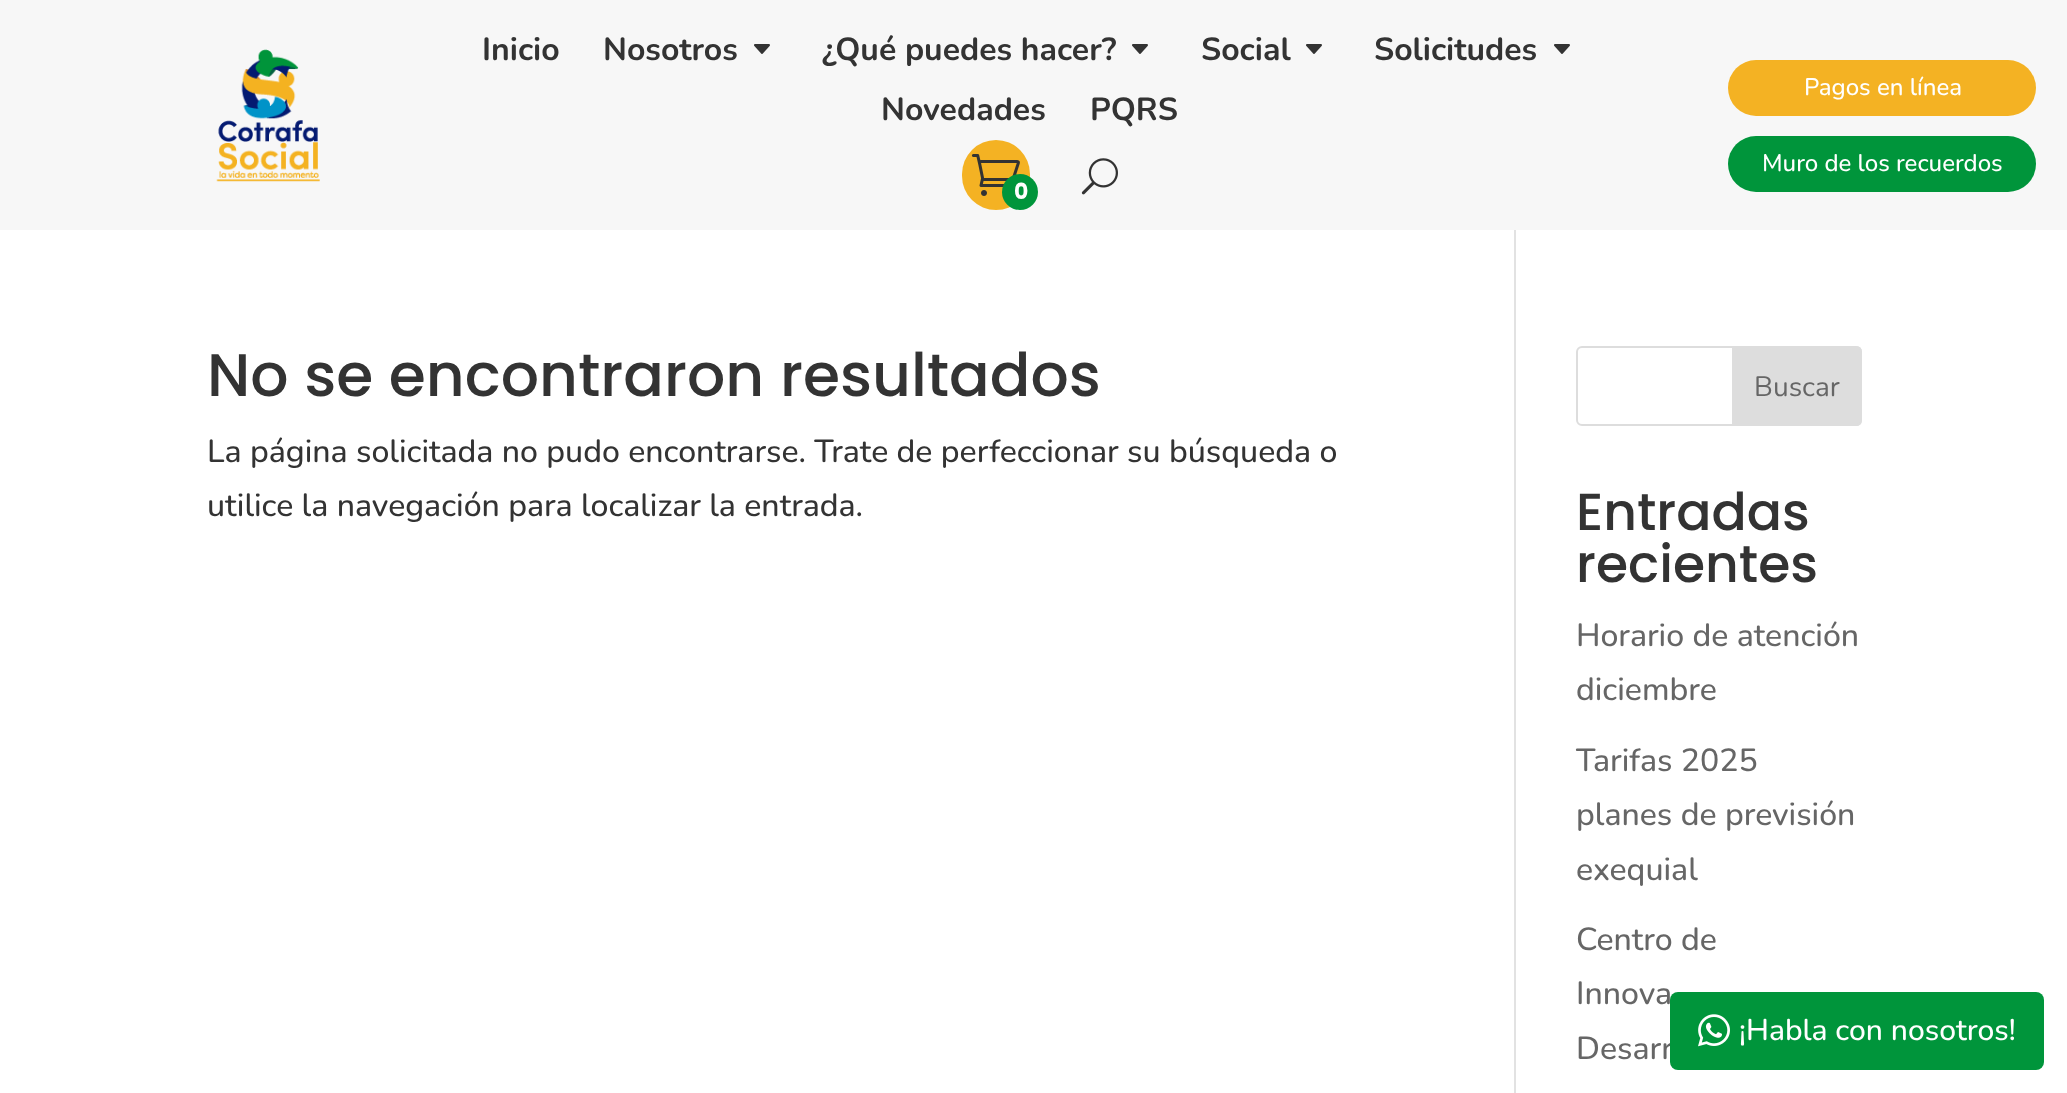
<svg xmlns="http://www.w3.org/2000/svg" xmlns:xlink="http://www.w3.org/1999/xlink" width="2067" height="1093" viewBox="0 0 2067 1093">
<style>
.cls-1{font:bold 32px Nunito;fill:#333333}
.cls-2{font:bold 22px Poppins;fill:#ffffff}
.cls-3{font:500 24px Nunito;fill:#ffffff}
.cls-4{font:500 60px Poppins;fill:#333333}
.cls-5{font:500 32px Nunito;fill:#333333}
.cls-6{font:28px Nunito;fill:#666666}
.cls-7{font:500 52px Poppins;fill:#333333}
.cls-8{font:500 32px Nunito;fill:#666666}
.cls-9{font:500 30px Nunito;fill:#ffffff}
</style>
<rect width="100%" height="100%" fill="#ffffff"/>
<rect fill="#f7f7f7" x="0" y="0" width="2067" height="230"/>
<image xlink:href="image0.png" x="216" y="49" width="104" height="133"/>
<image xlink:href="image1.png" x="754" y="44" width="16" height="10"/>
<image xlink:href="image1.png" x="1132" y="44" width="16" height="10"/>
<image xlink:href="image1.png" x="1306" y="44" width="16" height="10"/>
<image xlink:href="image1.png" x="1554" y="44" width="16" height="10"/>
<rect fill="#f4b223" x="962" y="140" width="68" height="70" rx="34"/>
<image xlink:href="image2.png" x="971" y="154" width="49" height="42"/>
<circle fill="#00953b" cx="1020" cy="192" r="18"/>
<image xlink:href="image3.png" x="1081" y="158" width="37" height="37"/>
<rect fill="#f4b223" x="1728" y="60" width="308" height="56" rx="28"/>
<rect fill="#00953b" x="1728" y="136" width="308" height="56" rx="28"/>
<rect fill="#e2e2e2" x="1514" y="230" width="2" height="863"/>
<rect fill="none" stroke="#dddddd" stroke-width="2" x="1577" y="347" width="284" height="78" rx="5"/>
<path fill="#dddddd" stroke="#dddddd" stroke-width="2" d="M1733 347H1856C1859 347 1861 349 1861 352V420C1861 423 1859 425 1856 425H1733Z"/>
<text class="cls-1" x="482" y="60">Inicio</text>
<text class="cls-1" x="603" y="60">Nosotros</text>
<text class="cls-1" x="822" y="60">¿Qué puedes hacer?</text>
<text class="cls-1" x="1201" y="60">Social</text>
<text class="cls-1" x="1374" y="60">Solicitudes</text>
<text class="cls-1" x="881" y="120">Novedades</text>
<text class="cls-1" x="1090" y="120">PQRS</text>
<text class="cls-2" x="1014" y="199">0</text>
<text class="cls-3" x="1804" y="95">Pagos en línea</text>
<text class="cls-3" x="1762" y="171">Muro de los recuerdos</text>
<text class="cls-4" x="207" y="396">No se encontraron resultados</text>
<text class="cls-5"><tspan x="207" y="462">La página solicitada no pudo encontrarse. Trate de perfeccionar su búsqueda o</tspan><tspan x="207" y="516">utilice la navegación para localizar la entrada.</tspan></text>
<text class="cls-6" x="1754" y="396">Buscar</text>
<text class="cls-7"><tspan x="1576" y="530">Entradas</tspan><tspan x="1576" y="582">recientes</tspan></text>
<text class="cls-8"><tspan x="1576" y="646">Horario de atención</tspan><tspan x="1576" y="700">diciembre</tspan></text>
<text class="cls-8"><tspan x="1576" y="771">Tarifas 2025</tspan><tspan x="1576" y="825">planes de previsión</tspan><tspan x="1576" y="880">exequial</tspan></text>
<text class="cls-8"><tspan x="1576" y="950">Centro de</tspan><tspan x="1576" y="1004">Innova</tspan><tspan x="1576" y="1059">Desarr</tspan></text>
<rect fill="#00953b" x="1670" y="992" width="374" height="78" rx="8"/>
<image xlink:href="image4.png" x="1698" y="1014" width="32" height="33"/>
<text class="cls-9" x="1739" y="1040">¡Habla con nosotros!</text>
</svg>
